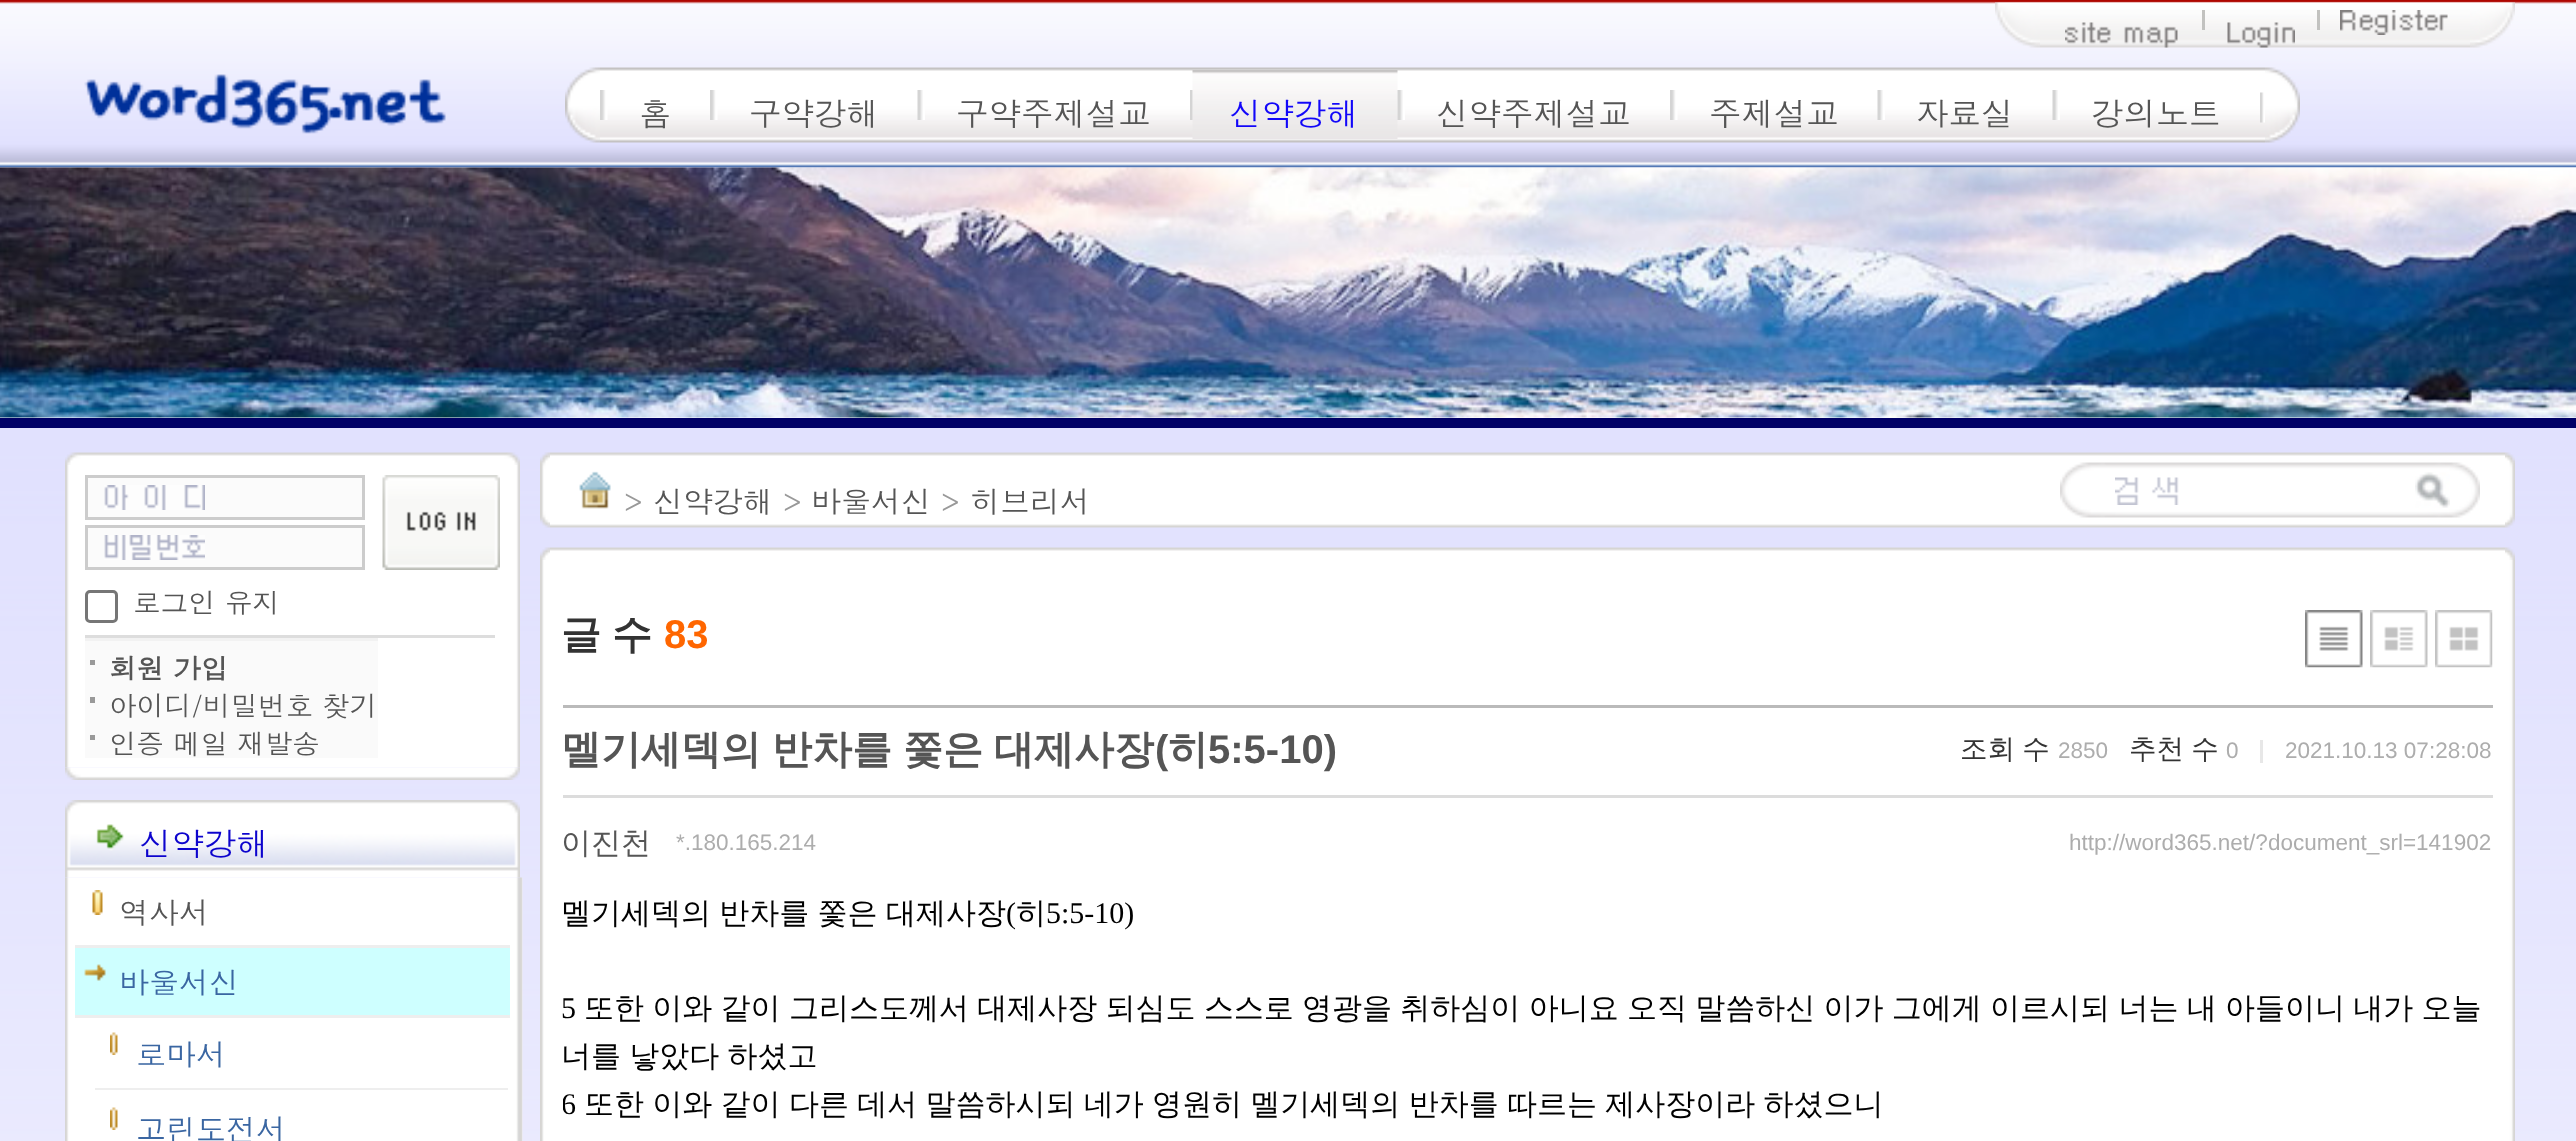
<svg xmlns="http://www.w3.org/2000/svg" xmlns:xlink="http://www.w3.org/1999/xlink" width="2576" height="1141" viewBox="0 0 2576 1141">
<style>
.cls-1{font:32.5px Dotum;fill:#555555}
.cls-2{font:32.5px Dotum;fill:#1207f9}
.cls-3{font:27.5px Dotum;fill:#555555}
.cls-4{font:bold 27.5px Dotum;fill:#555555}
.cls-5{font:32.5px Dotum;fill:#0d04cd}
.cls-6{font:30px Dotum;fill:#555555}
.cls-7{font:30px Dotum;fill:#3a66a2}
.cls-8{font:30px Dotum;fill:#999999}
.cls-9{font:bold 40px WenQuanYi Zen Hei;fill:#333333}
.cls-10{font:bold 40px Liberation Sans;fill:#ff6600}
.cls-11{font:bold 40px WenQuanYi Zen Hei;fill:#555555}
.cls-12{font:bold 40px Liberation Sans;fill:#555555}
.cls-13{font:500 27.5px WenQuanYi Zen Hei;fill:#333333}
.cls-14{font:22.5px Liberation Sans;fill:#adadad}
.cls-15{font:500 30px WenQuanYi Zen Hei;fill:#555555}
.cls-16{font:500 30px WenQuanYi Zen Hei;fill:#000000}
.cls-17{font:30px Liberation Serif;fill:#000000}
</style>
<defs>
<clipPath id="clip1"><rect x="563" y="890" width="1930" height="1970"/></clipPath>
</defs>
<rect width="100%" height="100%" fill="#ffffff"/>
<image xlink:href="image0.png" x="0" y="0" width="2576" height="168"/>
<image xlink:href="image1.png" x="1995" y="2" width="45" height="46"/>
<image xlink:href="image2.png" x="2040" y="2" width="430" height="46"/>
<rect fill="#c2c2c0" x="2202" y="10" width="3" height="20"/>
<image xlink:href="image3.png" x="2065" y="22" width="113" height="26"/>
<rect fill="#c2c2c0" x="2317" y="10" width="3" height="20"/>
<image xlink:href="image4.png" x="2227" y="22" width="68" height="26"/>
<image xlink:href="image5.png" x="2340" y="10" width="108" height="25"/>
<image xlink:href="image6.png" x="2470" y="2" width="45" height="46"/>
<image xlink:href="image7.png" x="84" y="74" width="362" height="60"/>
<image xlink:href="image8.png" x="565" y="67" width="35" height="76"/>
<image xlink:href="image9.png" x="600" y="67" width="1665" height="76"/>
<image xlink:href="image10.png" x="2260" y="92" width="5" height="31"/>
<image xlink:href="image11.png" x="600" y="90" width="8" height="30"/>
<image xlink:href="image11.png" x="710" y="90" width="8" height="30"/>
<image xlink:href="image12.png" x="917" y="90" width="8" height="30"/>
<image xlink:href="image13.png" x="1190" y="90" width="3" height="30"/>
<image xlink:href="image14.png" x="1192" y="70" width="206" height="69"/>
<image xlink:href="image15.png" x="1397" y="90" width="8" height="30"/>
<image xlink:href="image11.png" x="1670" y="90" width="8" height="30"/>
<image xlink:href="image12.png" x="1877" y="90" width="8" height="30"/>
<image xlink:href="image12.png" x="2052" y="90" width="8" height="30"/>
<image xlink:href="image16.png" x="2265" y="67" width="35" height="76"/>
<image xlink:href="image17.png" x="0" y="167" width="2576" height="251"/>
<image xlink:href="image18.png" x="0" y="428" width="2576" height="713"/>
<rect fill="#000066" x="0" y="418" width="2576" height="10"/>
<image xlink:href="image19.png" x="65" y="452" width="455" height="13"/>
<image xlink:href="image20.png" x="65" y="465" width="455" height="303"/>
<rect fill="#fbfbfb" x="88" y="478" width="274" height="39"/>
<image xlink:href="image21.png" x="104" y="485" width="101" height="25"/>
<rect fill="none" stroke="#cccccc" stroke-width="3" x="86.5" y="476.5" width="277" height="42"/>
<image xlink:href="image22.png" x="382" y="475" width="118" height="95"/>
<rect fill="#fbfbfb" x="88" y="528" width="274" height="39"/>
<image xlink:href="image23.png" x="104" y="535" width="101" height="25"/>
<rect fill="none" stroke="#cccccc" stroke-width="3" x="86.5" y="526.5" width="277" height="42"/>
<rect fill="#dddddd" x="85" y="635" width="410" height="3"/>
<rect fill="none" stroke="#767676" stroke-width="3" x="86.5" y="591.5" width="30" height="30" rx="3.5"/>
<rect fill="#fafafa" x="85" y="641" width="293" height="117"/>
<rect fill="#f2f2f2" x="85" y="638" width="293" height="3"/>
<rect fill="#999999" x="90" y="660" width="5" height="5"/>
<rect fill="#999999" x="90" y="697" width="5" height="6"/>
<rect fill="#999999" x="90" y="735" width="5" height="5"/>
<image xlink:href="image24.png" x="65" y="767" width="455" height="13"/>
<image xlink:href="image25.png" x="65" y="800" width="455" height="78"/>
<image xlink:href="image26.png" x="96" y="824" width="28" height="27"/>
<image xlink:href="image27.png" x="65" y="877" width="458" height="264"/>
<image xlink:href="image28.png" x="92" y="890" width="11" height="25"/>
<rect fill="#eeeeee" x="75" y="945" width="435" height="3"/>
<rect fill="#ceffff" x="75" y="948" width="435" height="67"/>
<image xlink:href="image29.png" x="84" y="964" width="22" height="17"/>
<rect fill="#eeeeee" x="75" y="1015" width="435" height="3"/>
<image xlink:href="image30.png" x="110" y="1032" width="8" height="23"/>
<rect fill="#eeeeee" x="95" y="1088" width="413" height="2"/>
<image xlink:href="image30.png" x="110" y="1107" width="8" height="23"/>
<image xlink:href="image31.png" x="540" y="452" width="10" height="76"/>
<image xlink:href="image32.png" x="550" y="452" width="1955" height="76"/>
<image xlink:href="image33.png" x="579" y="471" width="32" height="38"/>
<image xlink:href="image34.png" x="2060" y="462" width="420" height="56"/>
<image xlink:href="image35.png" x="2115" y="477" width="64" height="28"/>
<image xlink:href="image36.png" x="2415" y="472" width="35" height="36"/>
<image xlink:href="image37.png" x="2505" y="452" width="10" height="76"/>
<image xlink:href="image38.png" x="540" y="547" width="10" height="13"/>
<image xlink:href="image39.png" x="550" y="547" width="1955" height="13"/>
<image xlink:href="image40.png" x="2505" y="547" width="10" height="13"/>
<image xlink:href="image41.png" x="540" y="560" width="10" height="581"/>
<rect fill="#ffffff" x="550" y="560" width="1955" height="581"/>
<image xlink:href="image42.png" x="2305" y="610" width="58" height="58"/>
<image xlink:href="image43.png" x="2370" y="610" width="58" height="58"/>
<image xlink:href="image44.png" x="2435" y="610" width="58" height="58"/>
<rect fill="#bababa" x="563" y="705" width="1930" height="3"/>
<rect fill="#dcdcdc" x="563" y="795" width="1930" height="3"/>
<rect fill="#e7e7e7" x="2260" y="740" width="3" height="23"/>
<image xlink:href="image45.png" x="2505" y="560" width="10" height="581"/>
<text class="cls-1" x="639" y="126">홈</text>
<text class="cls-1" x="749" y="126">구약강해</text>
<text class="cls-1" x="956" y="126">구약주제설교</text>
<text class="cls-2" x="1229" y="126">신약강해</text>
<text class="cls-1" x="1436" y="126">신약주제설교</text>
<text class="cls-1" x="1709" y="126">주제설교</text>
<text class="cls-1" x="1916" y="126">자료실</text>
<text class="cls-1" x="2091" y="126">강의노트</text>
<text class="cls-3" x="133" y="613">로그인 유지</text>
<text class="cls-4" x="109" y="679">회원 가입</text>
<text class="cls-3"><tspan x="109" y="716">아이디/비밀번호 찾기</tspan><tspan x="109" y="754">인증 메일 재발송</tspan></text>
<text class="cls-5" x="139" y="856">신약강해</text>
<text class="cls-6" x="119" y="924">역사서</text>
<text class="cls-7" x="119" y="994">바울서신</text>
<text class="cls-7" x="136" y="1066">로마서</text>
<text class="cls-7" x="136" y="1141">고린도전서</text>
<text class="cls-8" x="624" y="513">&gt;</text>
<text class="cls-6" x="653" y="513">신약강해</text>
<text class="cls-8" x="783" y="513">&gt;</text>
<text class="cls-6" x="811" y="513">바울서신</text>
<text class="cls-8" x="941" y="513">&gt;</text>
<text class="cls-6" x="970" y="513">히브리서</text>
<text class="cls-9" x="561" y="648" word-spacing="-1">글 수</text>
<text class="cls-10" x="664" y="648">83</text>
<text class="cls-11" x="561" y="763" word-spacing="-1">멜기세덱의 반차를 쫓은 대제사장</text>
<text class="cls-12" x="1155" y="763">(</text>
<text class="cls-11" x="1168" y="763">히</text>
<text class="cls-12" x="1208" y="763">5:5-10)</text>
<text class="cls-13" x="1960" y="758" word-spacing="-1">조회 수</text>
<text class="cls-14" x="2058" y="758">2850</text>
<text class="cls-13" x="2129" y="758" word-spacing="-1">추천 수</text>
<text class="cls-14" x="2226" y="758">0</text>
<text class="cls-14" x="2285" y="758">2021.10.13 07:28:08</text>
<text class="cls-15" x="561" y="853">이진천</text>
<text class="cls-14" x="676" y="850">*.180.165.214</text>
<text class="cls-14" x="2069" y="850">http://word365.net/?document_srl=141902</text>
<text class="cls-16" x="561" y="923" word-spacing="-0.7">멜기세덱의 반차를 쫓은 대제사장</text>
<text class="cls-17" x="1006" y="923">(</text>
<text class="cls-16" x="1016" y="923">히</text>
<text class="cls-17" x="1046" y="923">5:5-10)</text>
<text class="cls-17" x="561" y="1018">5</text>
<text class="cls-16" x="584" y="1018" word-spacing="-0.7">또한 이와 같이 그리스도께서 대제사장 되심도 스스로 영광을 취하심이 아니요 오직 말씀하신 이가 그에게 이르시되 너는 내 아들이니 내가 오늘</text>
<text class="cls-16" x="561" y="1066" word-spacing="-0.7">너를 낳았다 하셨고</text>
<g clip-path="url(#clip1)">
<text class="cls-17" x="561" y="1114">6</text>
</g>
<text class="cls-16" x="584" y="1114" word-spacing="-0.7">또한 이와 같이 다른 데서 말씀하시되 네가 영원히 멜기세덱의 반차를 따르는 제사장이라 하셨으니</text>
</svg>
